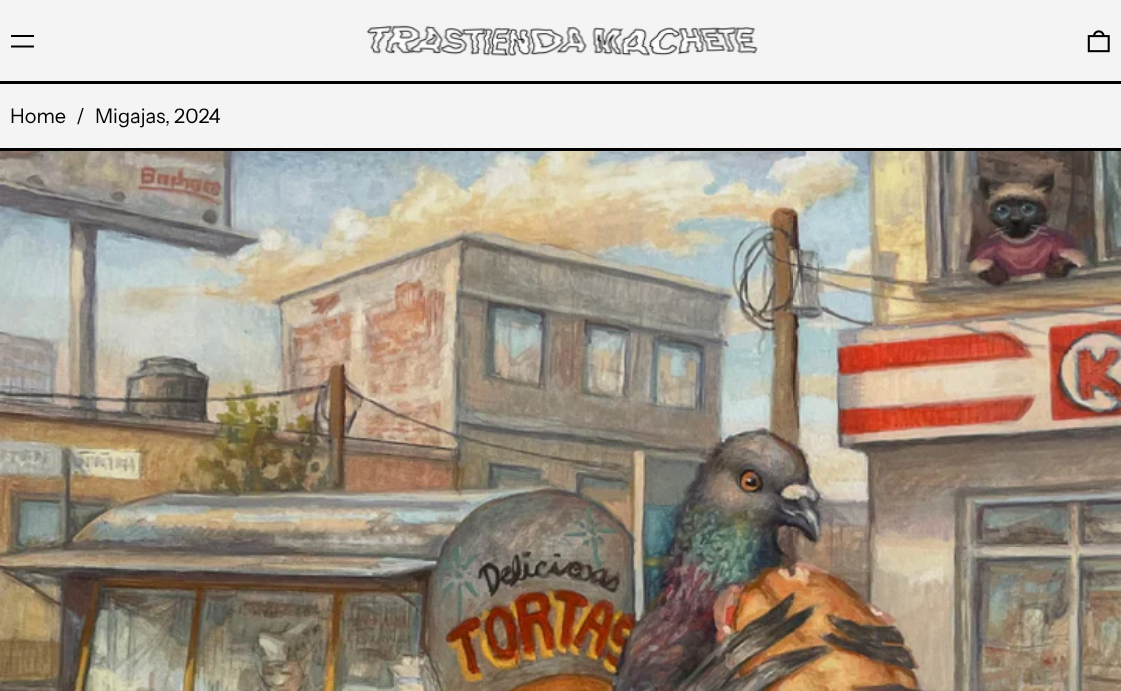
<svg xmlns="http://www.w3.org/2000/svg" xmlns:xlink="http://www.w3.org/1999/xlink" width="1121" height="691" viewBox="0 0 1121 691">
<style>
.cls-1{font:20px Instrument Sans;fill:#000000}
</style>
<rect width="100%" height="100%" fill="#f4f4f4"/>
<rect fill="#000000" x="0" y="81" width="1121" height="3"/>
<path fill="#000000" fill-rule="evenodd" d="M34 45.5V47.5H11V45.5ZM34 35V37H11V35Z"/>
<image xlink:href="image0.png" x="366" y="25" width="392" height="31"/>
<image xlink:href="image1.png" x="1087" y="30" width="23" height="23"/>
<rect fill="#000000" x="0" y="148" width="1121" height="3"/>
<image xlink:href="image2.png" x="0" y="151" width="1121" height="540"/>
<text class="cls-1" x="10" y="123">Home</text>
<text class="cls-1" x="76" y="123">/</text>
<text class="cls-1" x="95" y="123">Migajas, 2024</text>
</svg>
